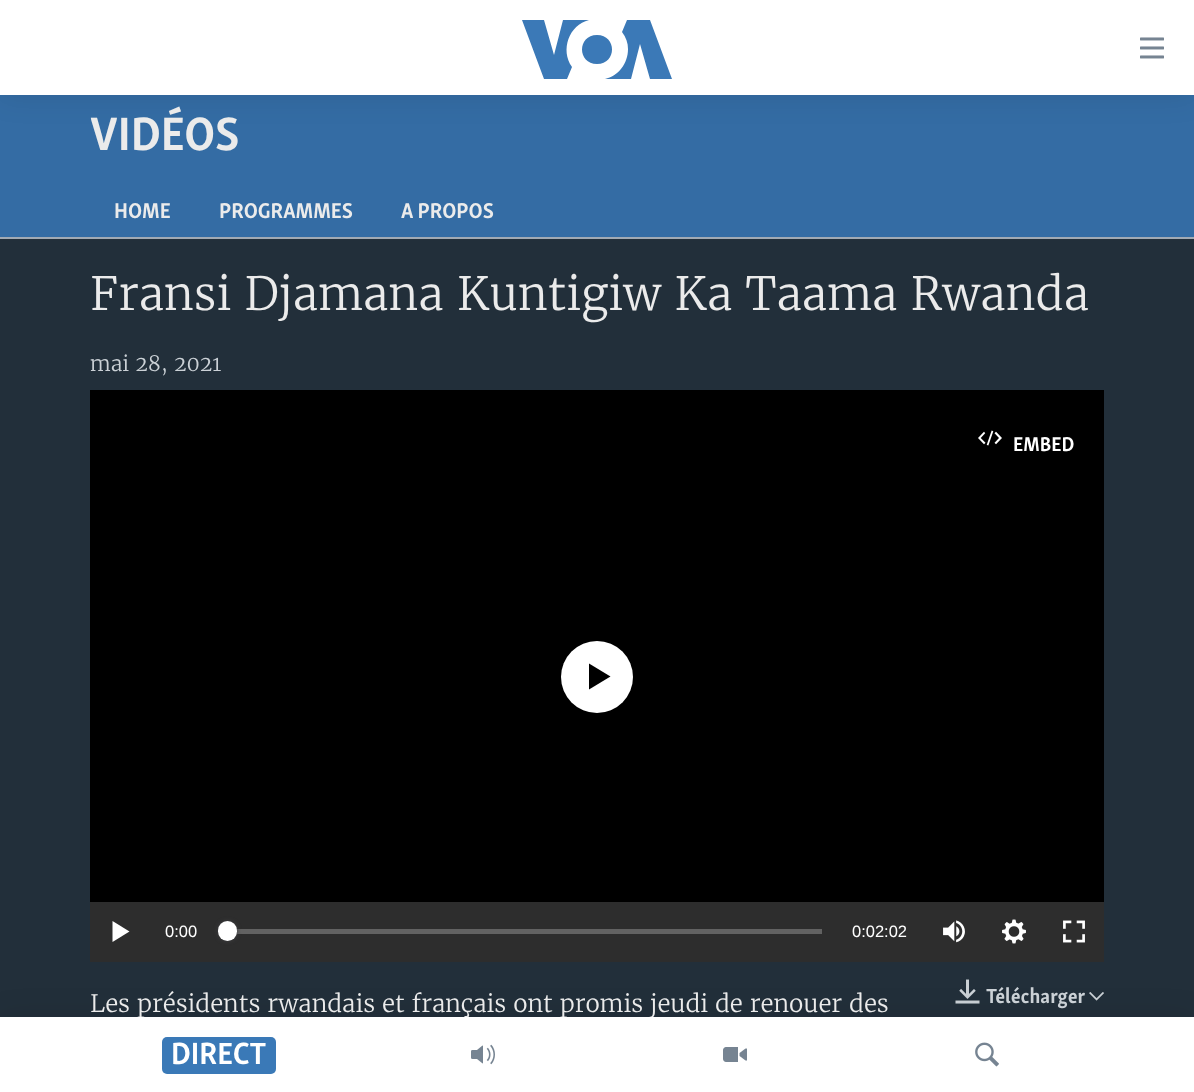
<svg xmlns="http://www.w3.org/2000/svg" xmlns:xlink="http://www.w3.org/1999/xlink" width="1194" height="1092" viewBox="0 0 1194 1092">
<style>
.cls-1{font:bold 48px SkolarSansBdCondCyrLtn;fill:#ebebeb}
.cls-2{font:bold 22px SkolarSansBdCondCyrLtn;fill:#ebebeb}
.cls-3{font:300 45.6px Merriweather;fill:#ebebeb}
.cls-4{font:300 21px Merriweather;fill:#cbd1d6}
.cls-5{font:bold 20.5px SkolarSansBdCondCyrLtn;fill:#ffffff}
.cls-6{font:16.5px Liberation Sans;fill:#ffffff}
.cls-7{font:300 24px Merriweather;fill:#ebebeb}
.cls-8{font:bold 21px SkolarSansBdCondCyrLtn;fill:#cbd1d6}
.cls-9{font:bold 31.5px SkolarSansBdCondCyrLtn;fill:#ffffff}
</style>
<rect width="100%" height="100%" fill="#346ca4"/>
<rect fill="#222f3a" x="0" y="239" width="1194" height="778"/>
<rect fill="#a1aab4" x="0" y="237" width="1194" height="2"/>
<rect fill="#000000" x="90" y="390" width="1014" height="512"/>
<image xlink:href="image0.png" x="978" y="430" width="24" height="16"/>
<circle fill="#ffffff" cx="597" cy="677" r="36"/>
<path fill="#000000" d="M589 689.5L610.5 676.5L589 663.5Z"/>
<rect fill="#2d2d2d" x="90" y="902" width="1014" height="60"/>
<path fill="#ffffff" d="M112.5 942L129.5 931.5L112.5 921Z"/>
<rect fill="#626262" x="236" y="929" width="586" height="5"/>
<rect fill="#414144" filter="blur(2px)" x="218" y="921" width="19" height="20" rx="9.5"/>
<rect fill="#ffffff" x="218" y="921" width="19" height="20" rx="9.5"/>
<image xlink:href="image1.png" x="943" y="920" width="22" height="23"/>
<image xlink:href="image2.png" x="1002" y="919" width="24" height="25"/>
<image xlink:href="image3.png" x="1063" y="920" width="22" height="23"/>
<image xlink:href="image4.png" x="955" y="979" width="25" height="25"/>
<image xlink:href="image5.png" x="1089" y="992" width="15" height="9"/>
<rect fill="#000000" fill-opacity="0.1" filter="blur(15px)" x="0" y="0" width="1194" height="95"/>
<rect fill="#ffffff" x="0" y="0" width="1194" height="95"/>
<path fill="#3b79b7" d="M572 67L567 79H544L522 20H544L554 55L563 20H589C569 25 560 50 572 67ZM597 35C577 35 577 64 597 64C617 64 617 35 597 35ZM628 49C628 64 618 76 605 79H631L640 44L650 79H672L650 20H627L622 32C626 37 628 43 628 49Z"/>
<image xlink:href="image6.png" x="1140" y="37" width="24" height="22"/>
<rect fill="#000000" fill-opacity="0.1" filter="blur(15px)" x="0" y="1017" width="1194" height="75"/>
<text class="cls-1" x="90" y="150">VIDÉOS</text>
<text class="cls-2" x="114" y="218">HOME</text>
<text class="cls-2" x="219" y="218">PROGRAMMES</text>
<text class="cls-2" x="401" y="218">A PROPOS</text>
<text class="cls-3" x="90" y="310">Fransi Djamana Kuntigiw Ka Taama Rwanda</text>
<text class="cls-4" x="90" y="371">mai 28, 2021</text>
<text class="cls-5" x="1013" y="451">EMBED</text>
<text class="cls-6" x="165" y="937">0:00</text>
<text class="cls-6" x="852" y="937">0:02:02</text>
<text class="cls-7" x="90" y="1012">Les présidents rwandais et français ont promis jeudi de renouer des</text>
<text class="cls-8" x="986" y="1003">Télécharger</text>
<rect fill="#ffffff" x="0" y="1017" width="1194" height="75"/>
<rect fill="#3a79b7" x="162" y="1037" width="114" height="37" rx="5"/>
<text class="cls-9" x="171" y="1064">DIRECT</text>
<image xlink:href="image7.png" x="471" y="1044" width="24" height="21"/>
<image xlink:href="image8.png" x="723" y="1047" width="24" height="15"/>
<image xlink:href="image9.png" x="975" y="1042" width="24" height="25"/>
</svg>
